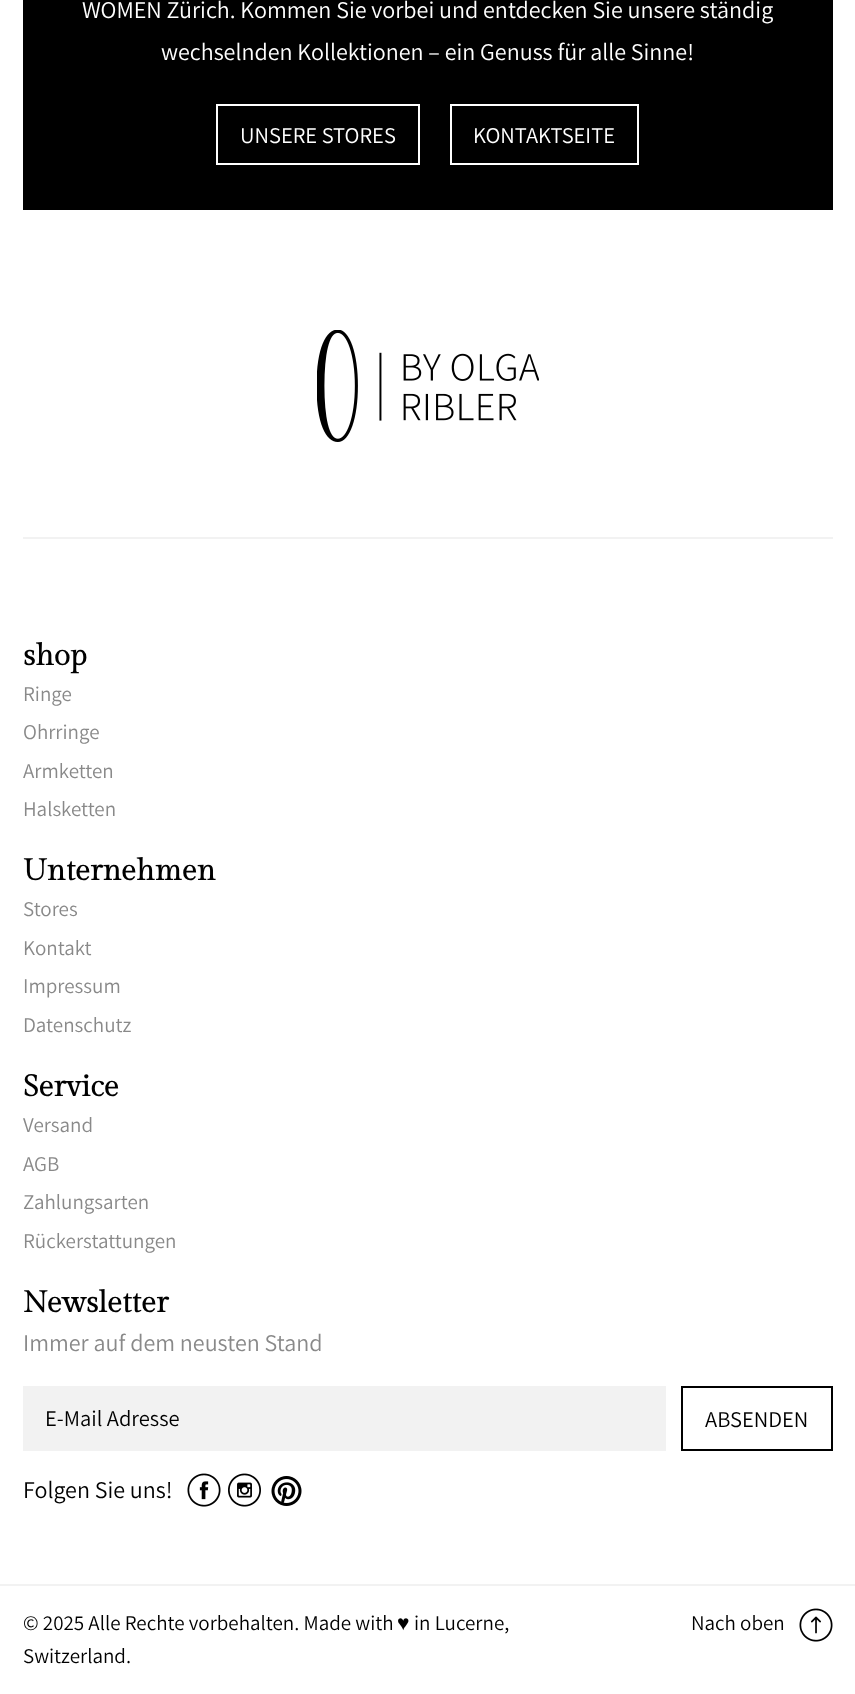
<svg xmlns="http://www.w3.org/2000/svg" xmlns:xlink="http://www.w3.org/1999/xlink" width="855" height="1694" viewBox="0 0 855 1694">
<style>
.cls-1{font:200 24px Assistant;fill:#ffffff}
.cls-2{font:200 22.5px Assistant;fill:#ffffff}
.cls-3{font:bold 30px Gilda Display;fill:#000000}
.cls-4{font:200 21px Assistant;fill:#898989}
.cls-5{font:200 24px Assistant;fill:#898989}
.cls-6{font:200 22.5px Assistant;fill:#000000}
.cls-7{font:200 24px Assistant;fill:#000000}
.cls-8{font:200 21px Assistant;fill:#000000}
.cls-9{font:21px Liberation Sans;fill:#000000}
</style>
<rect width="100%" height="100%" fill="#ffffff"/>
<rect fill="#000000" x="23" y="0" width="810" height="210"/>
<rect fill="none" stroke="#ffffff" stroke-width="2" x="217" y="105" width="202" height="59"/>
<rect fill="none" stroke="#ffffff" stroke-width="2" x="451" y="105" width="187" height="59"/>
<rect fill="#f2f2f2" x="23" y="537" width="810" height="2"/>
<image xlink:href="image0.png" x="317" y="330" width="222" height="112"/>
<rect fill="#f2f2f2" x="23" y="1386" width="643" height="65"/>
<rect fill="none" stroke="#000000" stroke-width="2" x="682" y="1387" width="150" height="63"/>
<image xlink:href="image1.png" x="187" y="1473" width="34" height="34"/>
<image xlink:href="image2.png" x="228" y="1473" width="33" height="34"/>
<image xlink:href="image3.png" x="271" y="1476" width="31" height="30"/>
<rect fill="#f2f2f2" x="0" y="1584" width="855" height="2"/>
<image xlink:href="image4.png" x="799" y="1608" width="34" height="34"/>
<text class="cls-1" x="82" y="18">WOMEN Zürich. Kommen Sie vorbei und entdecken Sie unsere ständig</text>
<text class="cls-1" x="161" y="60">wechselnden Kollektionen – ein Genuss für alle Sinne!</text>
<text class="cls-2" x="240" y="143">UNSERE STORES</text>
<text class="cls-2" x="473" y="143">KONTAKTSEITE</text>
<text class="cls-3" x="23" y="665">shop</text>
<text class="cls-4"><tspan x="23" y="701">Ringe</tspan><tspan x="23" y="739">Ohrringe</tspan><tspan x="23" y="778">Armketten</tspan><tspan x="23" y="816">Halsketten</tspan></text>
<text class="cls-3" x="23" y="880">Unternehmen</text>
<text class="cls-4"><tspan x="23" y="916">Stores</tspan><tspan x="23" y="955">Kontakt</tspan><tspan x="23" y="993">Impressum</tspan><tspan x="23" y="1032">Datenschutz</tspan></text>
<text class="cls-3" x="23" y="1096">Service</text>
<text class="cls-4"><tspan x="23" y="1132">Versand</tspan><tspan x="23" y="1171">AGB</tspan><tspan x="23" y="1209">Zahlungsarten</tspan><tspan x="23" y="1248">Rückerstattungen</tspan></text>
<text class="cls-3" x="23" y="1312">Newsletter</text>
<text class="cls-5" x="23" y="1351">Immer auf dem neusten Stand</text>
<text class="cls-6" x="45" y="1426">E-Mail Adresse</text>
<text class="cls-6" x="705" y="1427">ABSENDEN</text>
<text class="cls-7" x="23" y="1498">Folgen Sie uns!</text>
<text class="cls-8" x="23" y="1630">© 2025 Alle Rechte vorbehalten. Made with</text>
<text class="cls-9" x="397" y="1630">♥</text>
<text class="cls-8" x="414" y="1630">in Lucerne,</text>
<text class="cls-8" x="23" y="1663">Switzerland.</text>
<text class="cls-8" x="691" y="1630">Nach oben</text>
</svg>
